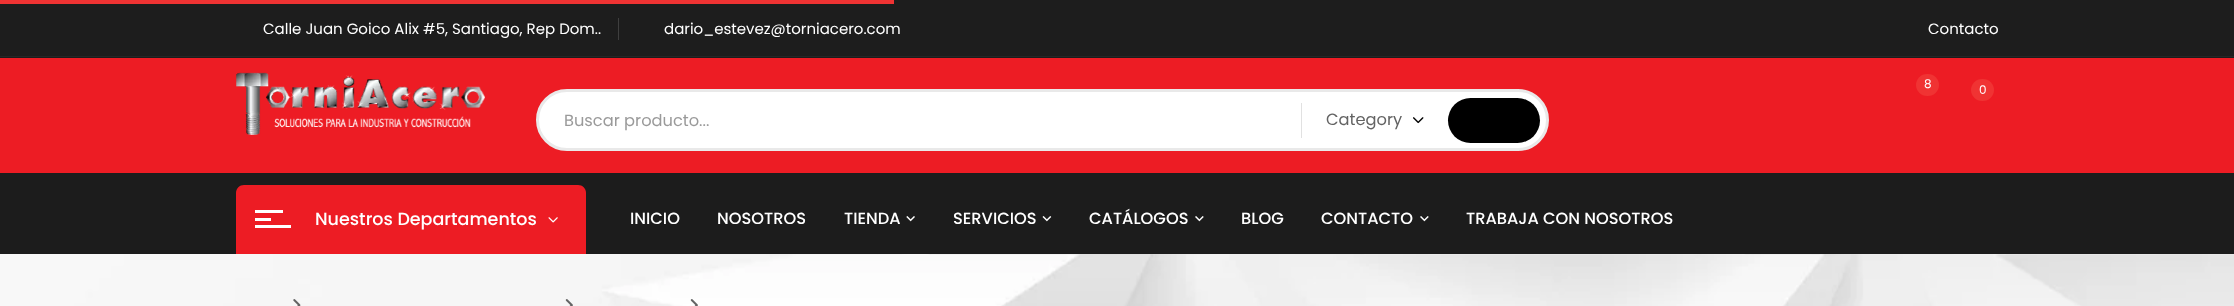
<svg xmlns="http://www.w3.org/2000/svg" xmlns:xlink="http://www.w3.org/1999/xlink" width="2234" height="306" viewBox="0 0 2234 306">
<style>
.cls-1{font:15px Poppins;fill:#ffffff}
.cls-2{font:12px Poppins;fill:#ffffff}
.cls-3{font:16.25px Poppins;fill:#9a9a9a}
.cls-4{font:16.25px Poppins;fill:#636363}
.cls-5{font:500 17.5px Poppins;fill:#ffffff}
.cls-6{font:500 16.25px Poppins;fill:#ffffff}
</style>
<rect width="100%" height="100%" fill="#ffffff"/>
<rect fill="#1d1d1d" x="0" y="0" width="2234" height="56"/>
<rect fill="#f03333" x="0" y="0" width="894" height="4"/>
<rect fill="#3f3f3f" x="618" y="18" width="1" height="22"/>
<rect fill="#1c1c1c" x="0" y="57" width="2234" height="197"/>
<rect fill="#262626" x="0" y="56" width="2234" height="1"/>
<rect fill="#ed1c24" x="0" y="58" width="2234" height="115"/>
<image xlink:href="image0.png" x="236" y="72" width="249" height="63"/>
<rect fill="#f03333" x="1916" y="74" width="23" height="22" rx="11"/>
<rect fill="#f03333" x="1971" y="79" width="23" height="22" rx="11"/>
<rect fill="#ffffff" stroke="#e9e9e9" stroke-width="3" x="537.5" y="90.5" width="1010" height="59" rx="29.5"/>
<rect fill="#e1e1e1" x="1301" y="103" width="1" height="35"/>
<image xlink:href="image1.png" x="1413" y="117" width="11" height="7"/>
<rect fill="#000000" x="1448" y="98" width="92" height="45" rx="22.5"/>
<path fill="#ed1c24" d="M244 185H578C582.5 185 586 188.5 586 193V254H236V193C236 188.5 239.5 185 244 185Z"/>
<rect fill="#ffffff" x="255" y="218" width="16" height="3"/>
<rect fill="#ffffff" x="255" y="210" width="28" height="3"/>
<rect fill="#ffffff" x="255" y="225" width="36" height="3"/>
<image xlink:href="image2.png" x="548" y="217" width="10" height="6"/>
<image xlink:href="image3.png" x="906" y="216" width="9" height="6"/>
<image xlink:href="image4.png" x="1042" y="216" width="10" height="6"/>
<image xlink:href="image5.png" x="1195" y="216" width="9" height="6"/>
<image xlink:href="image5.png" x="1420" y="216" width="9" height="6"/>
<image xlink:href="image6.png" x="0" y="254" width="2234" height="52"/>
<image xlink:href="image7.png" x="293" y="299" width="8" height="7"/>
<image xlink:href="image8.png" x="565" y="299" width="8" height="7"/>
<image xlink:href="image9.png" x="690" y="299" width="8" height="7"/>
<text class="cls-1" x="263" y="34">Calle Juan Goico Alix #5, Santiago, Rep Dom..</text>
<text class="cls-1" x="664" y="34">dario_estevez@torniacero.com</text>
<text class="cls-1" x="1928" y="34">Contacto</text>
<text class="cls-2" x="1924" y="88">8</text>
<text class="cls-2" x="1979" y="94">0</text>
<text class="cls-3" x="564" y="126">Buscar producto...</text>
<text class="cls-4" x="1326" y="125">Category</text>
<text class="cls-5" x="315" y="225">Nuestros Departamentos</text>
<text class="cls-6" x="630" y="224">INICIO</text>
<text class="cls-6" x="717" y="224">NOSOTROS</text>
<text class="cls-6" x="844" y="224">TIENDA</text>
<text class="cls-6" x="953" y="224">SERVICIOS</text>
<text class="cls-6" x="1089" y="224">CATÁLOGOS</text>
<text class="cls-6" x="1241" y="224">BLOG</text>
<text class="cls-6" x="1321" y="224">CONTACTO</text>
<text class="cls-6" x="1466" y="224">TRABAJA CON NOSOTROS</text>
</svg>
